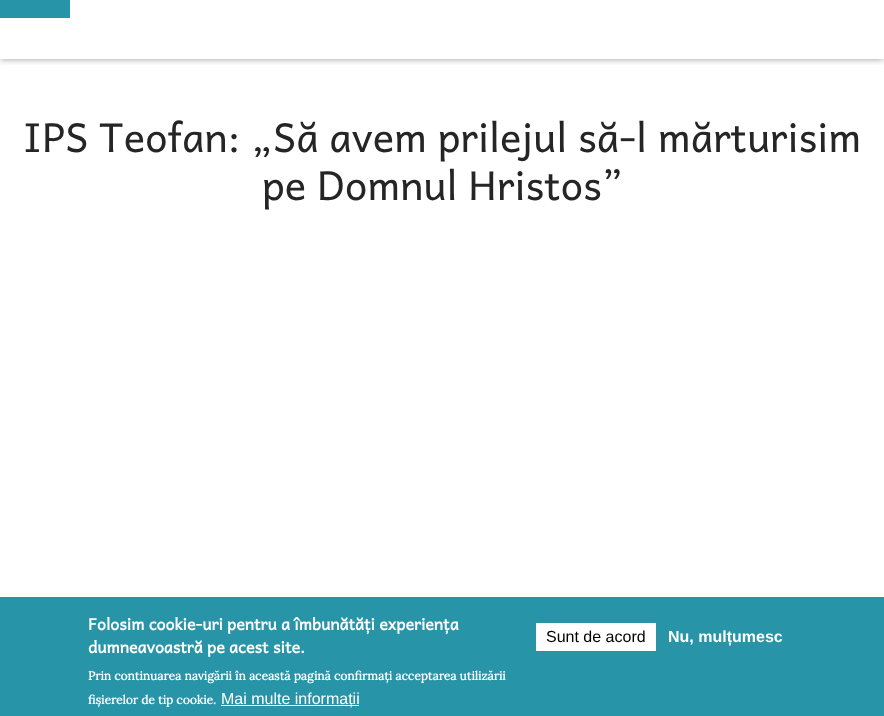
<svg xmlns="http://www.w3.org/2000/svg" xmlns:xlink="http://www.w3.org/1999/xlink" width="884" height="716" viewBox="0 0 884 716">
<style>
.cls-1{font:40px Andika;fill:#252525}
.cls-2{font:bold 16px Andika;fill:#ffffff}
.cls-3{font:bold 12px Lora;fill:#ffffff}
.cls-4{font:16px Liberation Sans;fill:#ffffff}
.cls-5{font:16px Liberation Sans;fill:#000000}
.cls-6{font:bold 16px Liberation Sans;fill:#ffffff}
</style>
<defs>
<clipPath id="clip1"><rect x="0" y="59" width="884" height="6"/></clipPath>
</defs>
<rect width="100%" height="100%" fill="#ffffff"/>
<g clip-path="url(#clip1)">
<rect fill="#000000" fill-opacity="0.4" filter="blur(3.5px)" x="0" y="-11" width="884" height="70"/>
</g>
<rect fill="#2794a7" x="0" y="0" width="70" height="18"/>
<rect fill="#2794a7" x="0" y="597" width="884" height="119"/>
<rect fill="#ffffff" x="221" y="705" width="138" height="1"/>
<rect fill="#ffffff" x="536" y="623" width="120" height="28"/>
<text class="cls-1" x="23" y="152">IPS Teofan: „Să avem prilejul să-l mărturisim</text>
<text class="cls-1" x="262" y="200">pe Domnul Hristos”</text>
<text class="cls-2"><tspan x="88" y="630">Folosim cookie-uri pentru a îmbunătăți experiența</tspan><tspan x="88" y="653">dumneavoastră pe acest site.</tspan></text>
<text class="cls-3" x="88" y="680">Prin continuarea navigării în această pagină confirmați acceptarea utilizării</text>
<text class="cls-3" x="88" y="704">fișierelor de tip cookie.</text>
<text class="cls-4" x="221" y="704">Mai multe informații</text>
<text class="cls-5" x="546" y="642">Sunt de acord</text>
<text class="cls-6" x="668" y="642">Nu, mulțumesc</text>
</svg>
